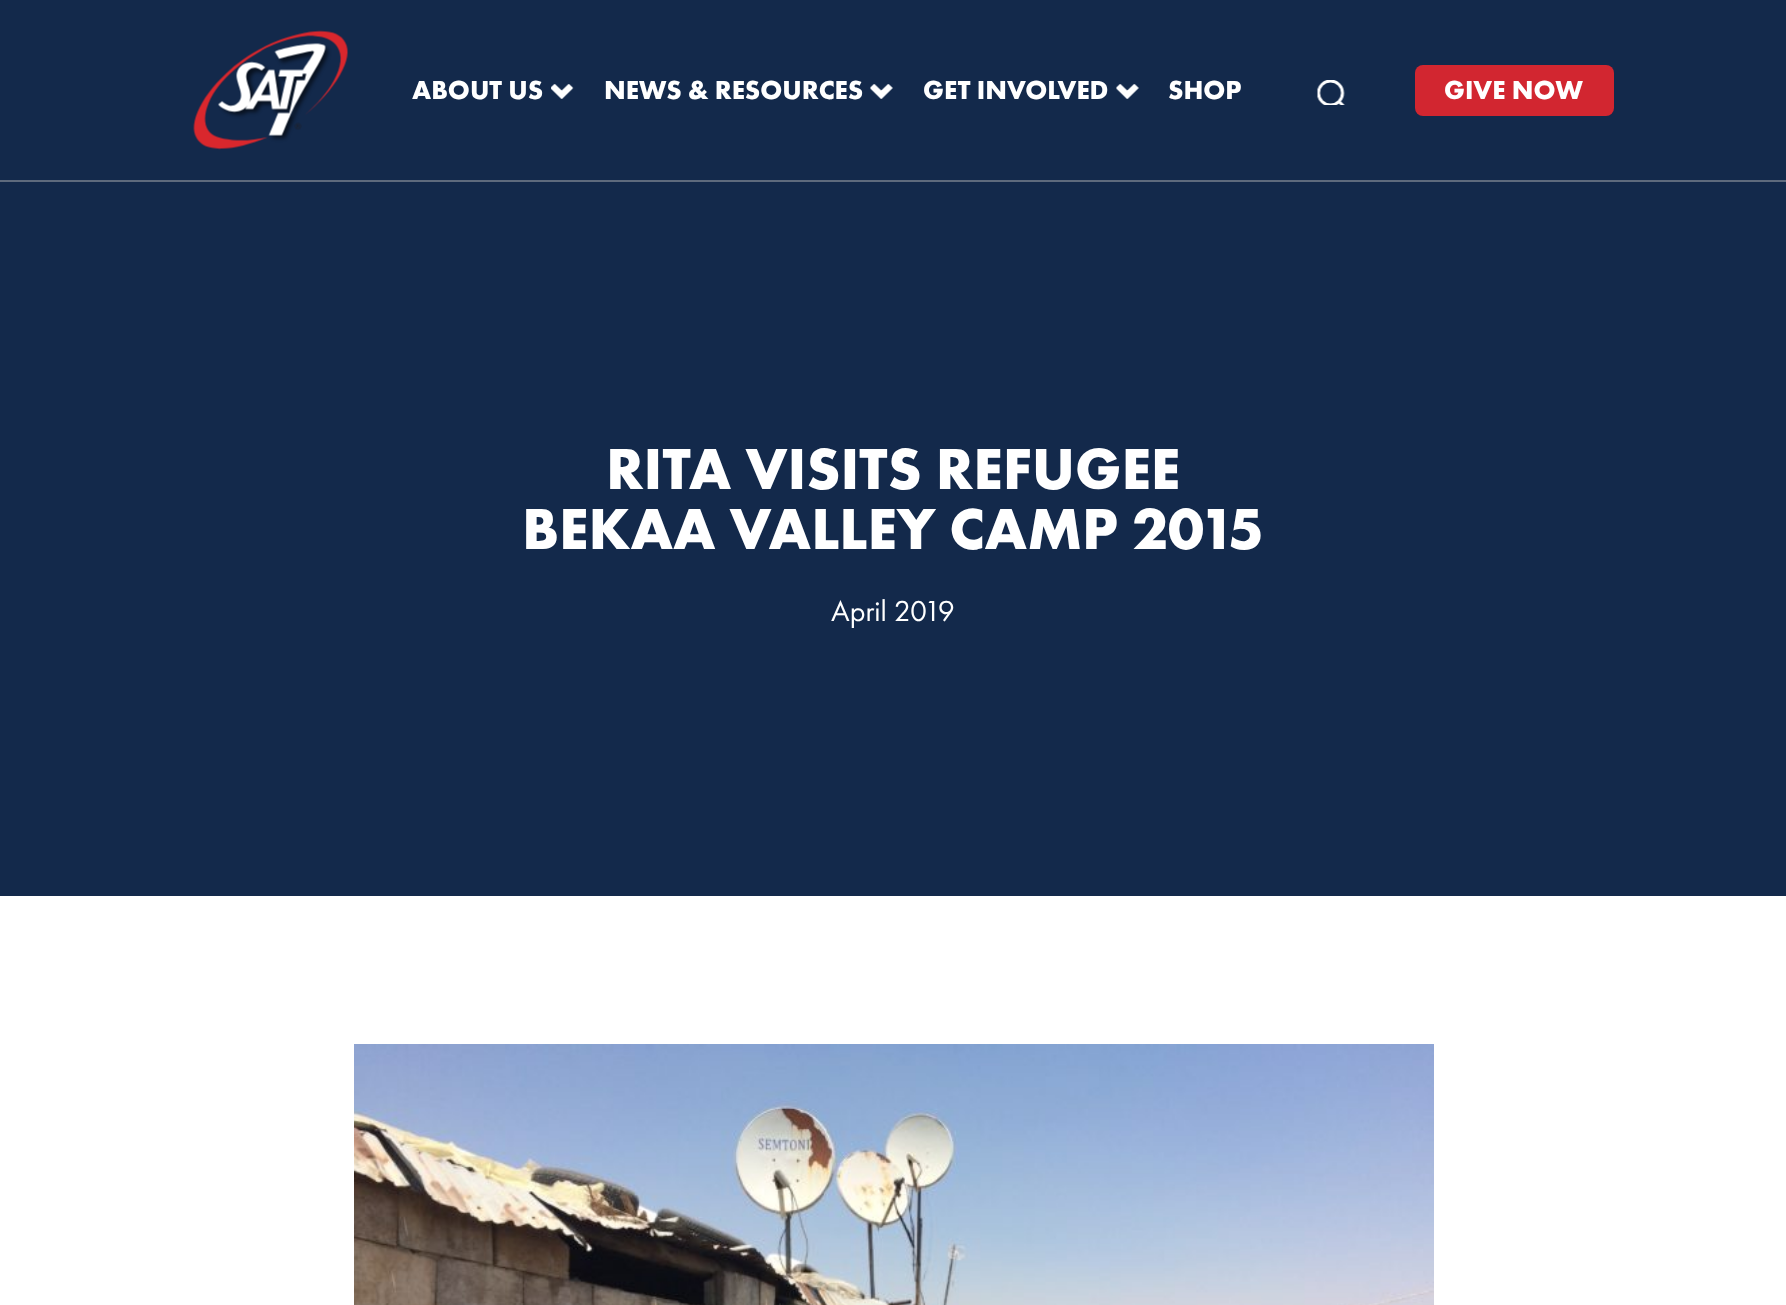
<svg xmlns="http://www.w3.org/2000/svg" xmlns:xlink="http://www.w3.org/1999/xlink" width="1786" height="1305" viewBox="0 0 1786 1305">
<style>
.cls-1{font:bold 27px Futura PT;fill:#ffffff}
.cls-2{font:bold 60px Futura PT;fill:#ffffff}
.cls-3{font:30px Futura PT;fill:#ffffff}
</style>
<rect width="100%" height="100%" fill="#ffffff"/>
<rect fill="#13294b" x="0" y="0" width="1786" height="180"/>
<image xlink:href="image0.png" x="193" y="30" width="155" height="120"/>
<image xlink:href="image1.png" x="551" y="84" width="23" height="15"/>
<image xlink:href="image2.png" x="870" y="84" width="23" height="15"/>
<image xlink:href="image2.png" x="1116" y="84" width="23" height="15"/>
<image xlink:href="image3.png" x="1317" y="80" width="28" height="25"/>
<rect fill="#d22630" x="1415" y="65" width="199" height="51" rx="8"/>
<rect fill="#13294b" x="0" y="182" width="1786" height="714"/>
<rect fill="#5e6a7d" x="0" y="180" width="1786" height="2"/>
<image xlink:href="image4.png" x="354" y="1044" width="1080" height="261"/>
<text class="cls-1" x="412" y="99">ABOUT US</text>
<text class="cls-1" x="604" y="99">NEWS &amp; RESOURCES</text>
<text class="cls-1" x="923" y="99">GET INVOLVED</text>
<text class="cls-1" x="1168" y="99">SHOP</text>
<text class="cls-1" x="1444" y="99">GIVE NOW</text>
<text class="cls-2" x="606" y="489">RITA VISITS REFUGEE</text>
<text class="cls-2" x="522" y="549">BEKAA VALLEY CAMP 2015</text>
<text class="cls-3" x="831" y="621">April 2019</text>
</svg>
